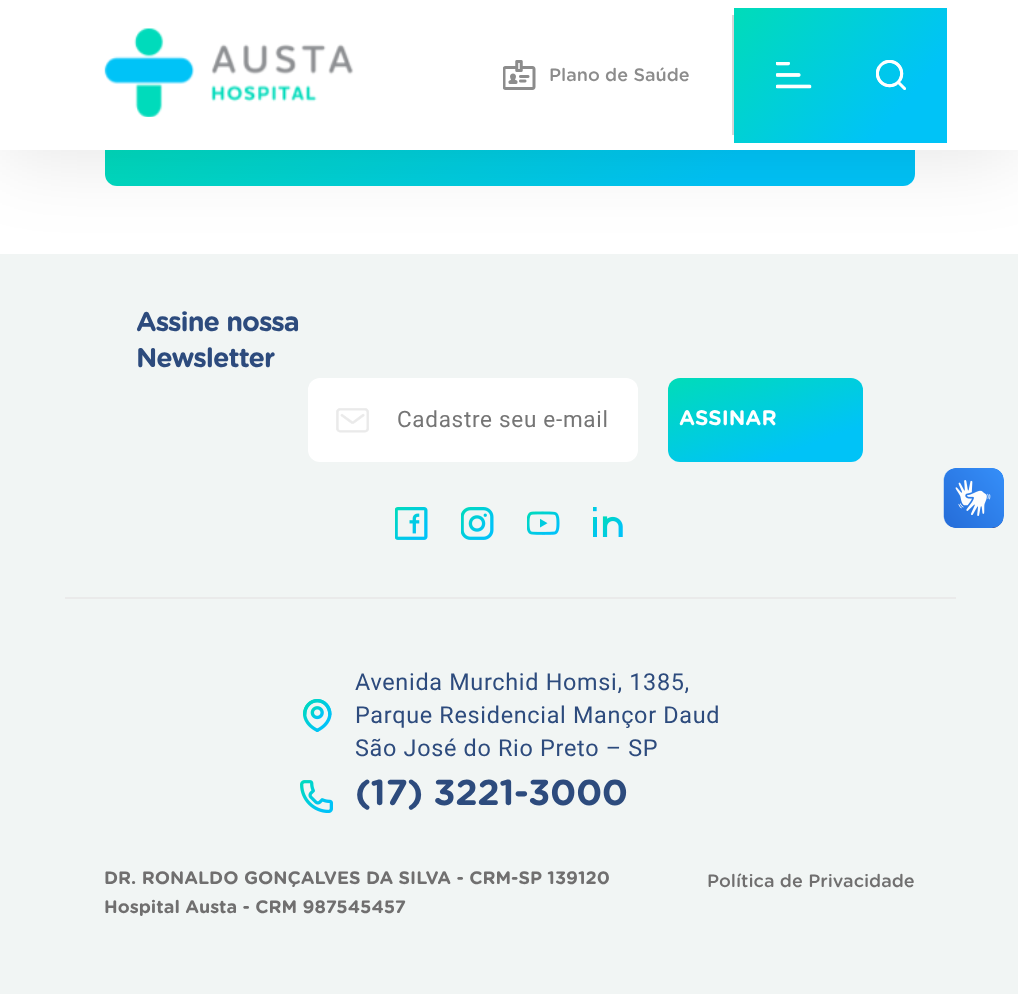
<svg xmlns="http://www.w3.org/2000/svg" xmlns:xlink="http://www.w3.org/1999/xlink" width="1018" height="994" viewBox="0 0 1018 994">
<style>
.cls-1{font:500 18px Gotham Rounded;fill:#8c8c8c}
.cls-2{font:bold 27px Gotham Rounded;letter-spacing:-1px;fill:#2d4b7d}
.cls-3{font:22.5px Roboto;letter-spacing:0.7px;fill:#757575}
.cls-4{font:bold 21px Gotham Rounded;fill:#ffffff}
.cls-5{font:23.4px Roboto;letter-spacing:0.7px;fill:#2d4b7d}
.cls-6{font:bold 36px Gotham Rounded;letter-spacing:-0.4px;fill:#2d4b7d}
.cls-7{font:bold 18px Gotham Rounded;fill:#706f6f}
.cls-8{font:500 18px Gotham Rounded;fill:#706f6f}
</style>
<defs>
<linearGradient id="g1" gradientUnits="userSpaceOnUse" x1="258" y1="-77" x2="762" y2="362"><stop offset="0.03" stop-color="#00dbbb"/><stop offset="0.77" stop-color="#00c3f7"/></linearGradient>
<linearGradient id="g2" gradientUnits="userSpaceOnUse" x1="746" y1="-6.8" x2="934" y2="157"><stop offset="0.03" stop-color="#00dbbb"/><stop offset="0.77" stop-color="#00c3f7"/></linearGradient>
<linearGradient id="g3" gradientUnits="userSpaceOnUse" x1="740" y1="352" x2="790" y2="488"><stop offset="0.03" stop-color="#00dbbb"/><stop offset="0.77" stop-color="#00c3f7"/></linearGradient>
</defs>
<rect width="100%" height="100%" fill="#ffffff"/>
<rect fill="url(#g1)" x="105" y="99" width="810" height="87" rx="12"/>
<rect fill="#f1f5f4" x="0" y="254" width="1018" height="740"/>
<rect fill="#000000" fill-opacity="0.1" filter="blur(40.5px)" x="0" y="6" width="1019" height="150"/>
<rect fill="#ffffff" x="0" y="0" width="1018" height="150"/>
<image xlink:href="image0.png" x="104" y="28" width="250" height="89"/>
<rect fill="url(#g2)" x="734" y="8" width="213" height="135"/>
<image xlink:href="image1.png" x="776" y="62" width="36" height="27"/>
<rect fill="#d6d6d6" x="732" y="15" width="2" height="120"/>
<image xlink:href="image2.png" x="503" y="60" width="33" height="30"/>
<image xlink:href="image3.png" x="876" y="60" width="30" height="30"/>
<rect fill="#ffffff" x="308" y="378" width="330" height="84" rx="12"/>
<image xlink:href="image4.png" x="336" y="408" width="33" height="25"/>
<rect fill="url(#g3)" x="668" y="378" width="195" height="84" rx="12"/>
<image xlink:href="image5.png" x="395" y="507" width="33" height="33"/>
<image xlink:href="image6.png" x="461" y="507" width="33" height="33"/>
<image xlink:href="image7.png" x="527" y="511" width="33" height="24"/>
<image xlink:href="image8.png" x="593" y="507" width="30" height="30"/>
<rect fill="#eaeaea" x="65" y="597" width="891" height="2"/>
<image xlink:href="image9.png" x="303" y="699" width="29" height="33"/>
<image xlink:href="image10.png" x="300" y="780" width="33" height="33"/>
<image xlink:href="image11.png" x="943" y="468" width="61" height="60"/>
<image xlink:href="image12.png" x="944" y="468" width="60" height="60"/>
<text class="cls-1" x="549" y="81">Plano de Saúde</text>
<text class="cls-2"><tspan x="136" y="331">Assine nossa</tspan><tspan x="136" y="367">Newsletter</tspan></text>
<text class="cls-3" x="397" y="427">Cadastre seu e-mail</text>
<text class="cls-4" x="679" y="425">ASSINAR</text>
<text class="cls-5"><tspan x="355" y="690">Avenida Murchid Homsi, 1385,</tspan><tspan x="355" y="723">Parque Residencial Mançor Daud</tspan><tspan x="355" y="756">São José do Rio Preto – SP</tspan></text>
<text class="cls-6" x="355" y="805">(17) 3221-3000</text>
<text class="cls-7"><tspan x="104" y="884">DR. RONALDO GONÇALVES DA SILVA - CRM-SP 139120</tspan><tspan x="104" y="913">Hospital Austa - CRM 987545457</tspan></text>
<text class="cls-8" x="707" y="887">Política de Privacidade</text>
</svg>
